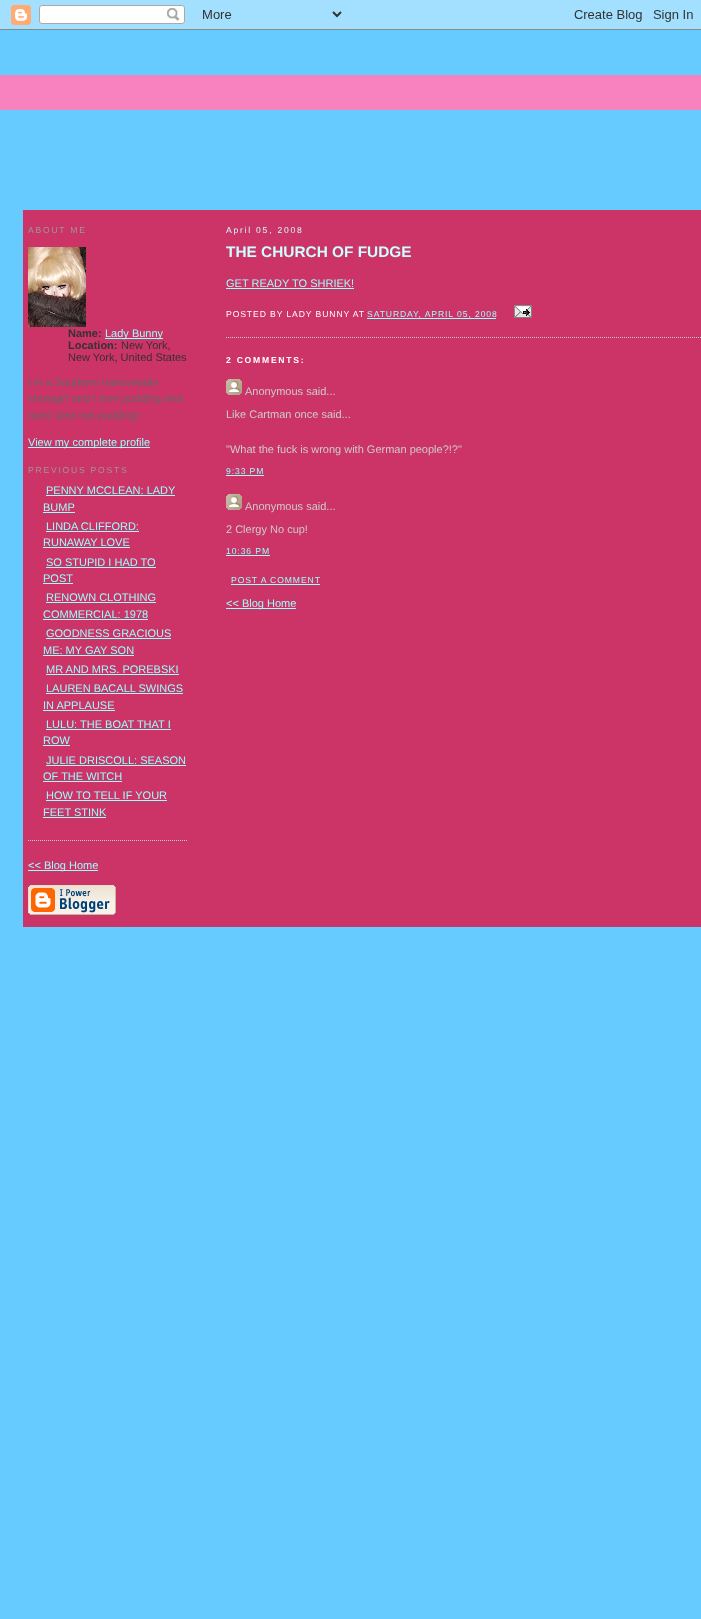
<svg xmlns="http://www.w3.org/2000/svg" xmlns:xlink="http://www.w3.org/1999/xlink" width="701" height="1619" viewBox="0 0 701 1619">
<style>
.cls-1{font:8.6px Liberation Sans;letter-spacing:1.75px;fill:#999999}
.cls-2{font:bold 11px Liberation Sans;fill:#333333}
.cls-3{font:11px Liberation Sans;fill:#99ffff}
.cls-4{font:11px Liberation Sans;fill:#333333}
.cls-5{font:11px Liberation Sans;fill:#666666}
.cls-6{font:8.6px Liberation Sans;letter-spacing:1.75px;fill:#ccffff}
.cls-7{font:bold 15.4px Liberation Sans;fill:#ccffff}
.cls-8{font:8.6px Liberation Sans;letter-spacing:0.9px;fill:#ffffff}
.cls-9{font:8.6px Liberation Sans;letter-spacing:0.9px;fill:#99ffff}
.cls-10{font:bold 8.6px Liberation Sans;letter-spacing:1.75px;fill:#ffffff}
.cls-11{font:11px Liberation Sans;fill:#cccccc}
</style>
<rect width="100%" height="100%" fill="#66ccff"/>
<image xlink:href="image0.png" x="0" y="0" width="701" height="30"/>
<rect fill="#f881bf" x="0" y="75" width="701" height="35"/>
<rect fill="#cc3366" x="23" y="210" width="678" height="717"/>
<image xlink:href="image1.png" x="28" y="247" width="58" height="80"/>
<rect fill="#99ffff" x="105" y="338" width="58" height="1"/>
<rect fill="#99ffff" x="28" y="447" width="122" height="1"/>
<path fill="none" stroke="#cccccc" stroke-dasharray="1 1" d="M28 840.5H188"/>
<rect fill="#99ffff" x="46" y="495" width="129" height="1"/>
<rect fill="#99ffff" x="43" y="512" width="32" height="1"/>
<rect fill="#99ffff" x="46" y="531" width="93" height="1"/>
<rect fill="#99ffff" x="43" y="547" width="87" height="1"/>
<rect fill="#99ffff" x="46" y="567" width="110" height="1"/>
<rect fill="#99ffff" x="43" y="583" width="30" height="1"/>
<rect fill="#99ffff" x="46" y="602" width="110" height="1"/>
<rect fill="#99ffff" x="43" y="619" width="105" height="1"/>
<rect fill="#99ffff" x="46" y="638" width="125" height="1"/>
<rect fill="#99ffff" x="43" y="655" width="91" height="1"/>
<rect fill="#99ffff" x="46" y="674" width="133" height="1"/>
<rect fill="#99ffff" x="46" y="693" width="137" height="1"/>
<rect fill="#99ffff" x="43" y="710" width="72" height="1"/>
<rect fill="#99ffff" x="46" y="729" width="125" height="1"/>
<rect fill="#99ffff" x="43" y="745" width="27" height="1"/>
<rect fill="#99ffff" x="46" y="765" width="140" height="1"/>
<rect fill="#99ffff" x="43" y="781" width="79" height="1"/>
<rect fill="#99ffff" x="46" y="800" width="121" height="1"/>
<rect fill="#99ffff" x="43" y="817" width="63" height="1"/>
<rect fill="#99ffff" x="28" y="870" width="70" height="1"/>
<image xlink:href="image2.png" x="28" y="885" width="88" height="30"/>
<path fill="none" stroke="#cccccc" stroke-dasharray="1 1" d="M226 337.5H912"/>
<rect fill="#99ffff" x="226" y="288" width="128" height="1"/>
<rect fill="#99ffff" x="367" y="318" width="129" height="1"/>
<image xlink:href="image3.png" x="514" y="305" width="18" height="13"/>
<image xlink:href="image4.png" x="226" y="379" width="16" height="16"/>
<rect fill="#99ffff" x="226" y="475" width="38" height="1"/>
<image xlink:href="image4.png" x="226" y="494" width="16" height="16"/>
<rect fill="#99ffff" x="226" y="555" width="44" height="1"/>
<rect fill="#99ffff" x="231" y="584" width="89" height="1"/>
<rect fill="#99ffff" x="226" y="608" width="70" height="1"/>
<text class="cls-1" x="28" y="233">ABOUT ME</text>
<text class="cls-2" x="68" y="337">Name:</text>
<text class="cls-3" x="105" y="337">Lady Bunny</text>
<text class="cls-2" x="68" y="349">Location:</text>
<text class="cls-4" x="121" y="349">New York,</text>
<text class="cls-4" x="68" y="361">New York, United States</text>
<text class="cls-5"><tspan x="28" y="386">I'm a Southern transvestite</tspan><tspan x="28" y="402">showgirl and I love pudding and</tspan><tspan x="28" y="419">owls! And owl pudding!</tspan></text>
<text class="cls-3" x="28" y="446">View my complete profile</text>
<text class="cls-1" x="28" y="473">PREVIOUS POSTS</text>
<text class="cls-3" x="46" y="494">PENNY MCCLEAN: LADY</text>
<text class="cls-3" x="43" y="511">BUMP</text>
<text class="cls-3" x="46" y="530">LINDA CLIFFORD:</text>
<text class="cls-3" x="43" y="546">RUNAWAY LOVE</text>
<text class="cls-3" x="46" y="566">SO STUPID I HAD TO</text>
<text class="cls-3" x="43" y="582">POST</text>
<text class="cls-3" x="46" y="601">RENOWN CLOTHING</text>
<text class="cls-3" x="43" y="618">COMMERCIAL: 1978</text>
<text class="cls-3" x="46" y="637">GOODNESS GRACIOUS</text>
<text class="cls-3" x="43" y="654">ME: MY GAY SON</text>
<text class="cls-3"><tspan x="46" y="673">MR AND MRS. POREBSKI</tspan><tspan x="46" y="692">LAUREN BACALL SWINGS</tspan></text>
<text class="cls-3" x="43" y="709">IN APPLAUSE</text>
<text class="cls-3" x="46" y="728">LULU: THE BOAT THAT I</text>
<text class="cls-3" x="43" y="744">ROW</text>
<text class="cls-3" x="46" y="764">JULIE DRISCOLL: SEASON</text>
<text class="cls-3" x="43" y="780">OF THE WITCH</text>
<text class="cls-3" x="46" y="799">HOW TO TELL IF YOUR</text>
<text class="cls-3" x="43" y="816">FEET STINK</text>
<text class="cls-3" x="28" y="869">&lt;&lt; Blog Home</text>
<text class="cls-6" x="226" y="233">April 05, 2008</text>
<text class="cls-7" x="226" y="257">THE CHURCH OF FUDGE</text>
<text class="cls-3" x="226" y="287">GET READY TO SHRIEK!</text>
<text class="cls-8" x="226" y="317">POSTED BY LADY BUNNY AT</text>
<text class="cls-9" x="367" y="317">SATURDAY, APRIL 05, 2008</text>
<text class="cls-10" x="226" y="363">2 COMMENTS:</text>
<text class="cls-11" x="245" y="395">Anonymous said...</text>
<text class="cls-11" x="226" y="418">Like Cartman once said...</text>
<text class="cls-11" x="226" y="453">"What the fuck is wrong with German people?!?"</text>
<text class="cls-9" x="226" y="474">9:33 PM</text>
<text class="cls-11" x="245" y="510">Anonymous said...</text>
<text class="cls-11" x="226" y="533">2 Clergy No cup!</text>
<text class="cls-9" x="226" y="554">10:36 PM</text>
<text class="cls-9" x="231" y="583">POST A COMMENT</text>
<text class="cls-3" x="226" y="607">&lt;&lt; Blog Home</text>
</svg>
